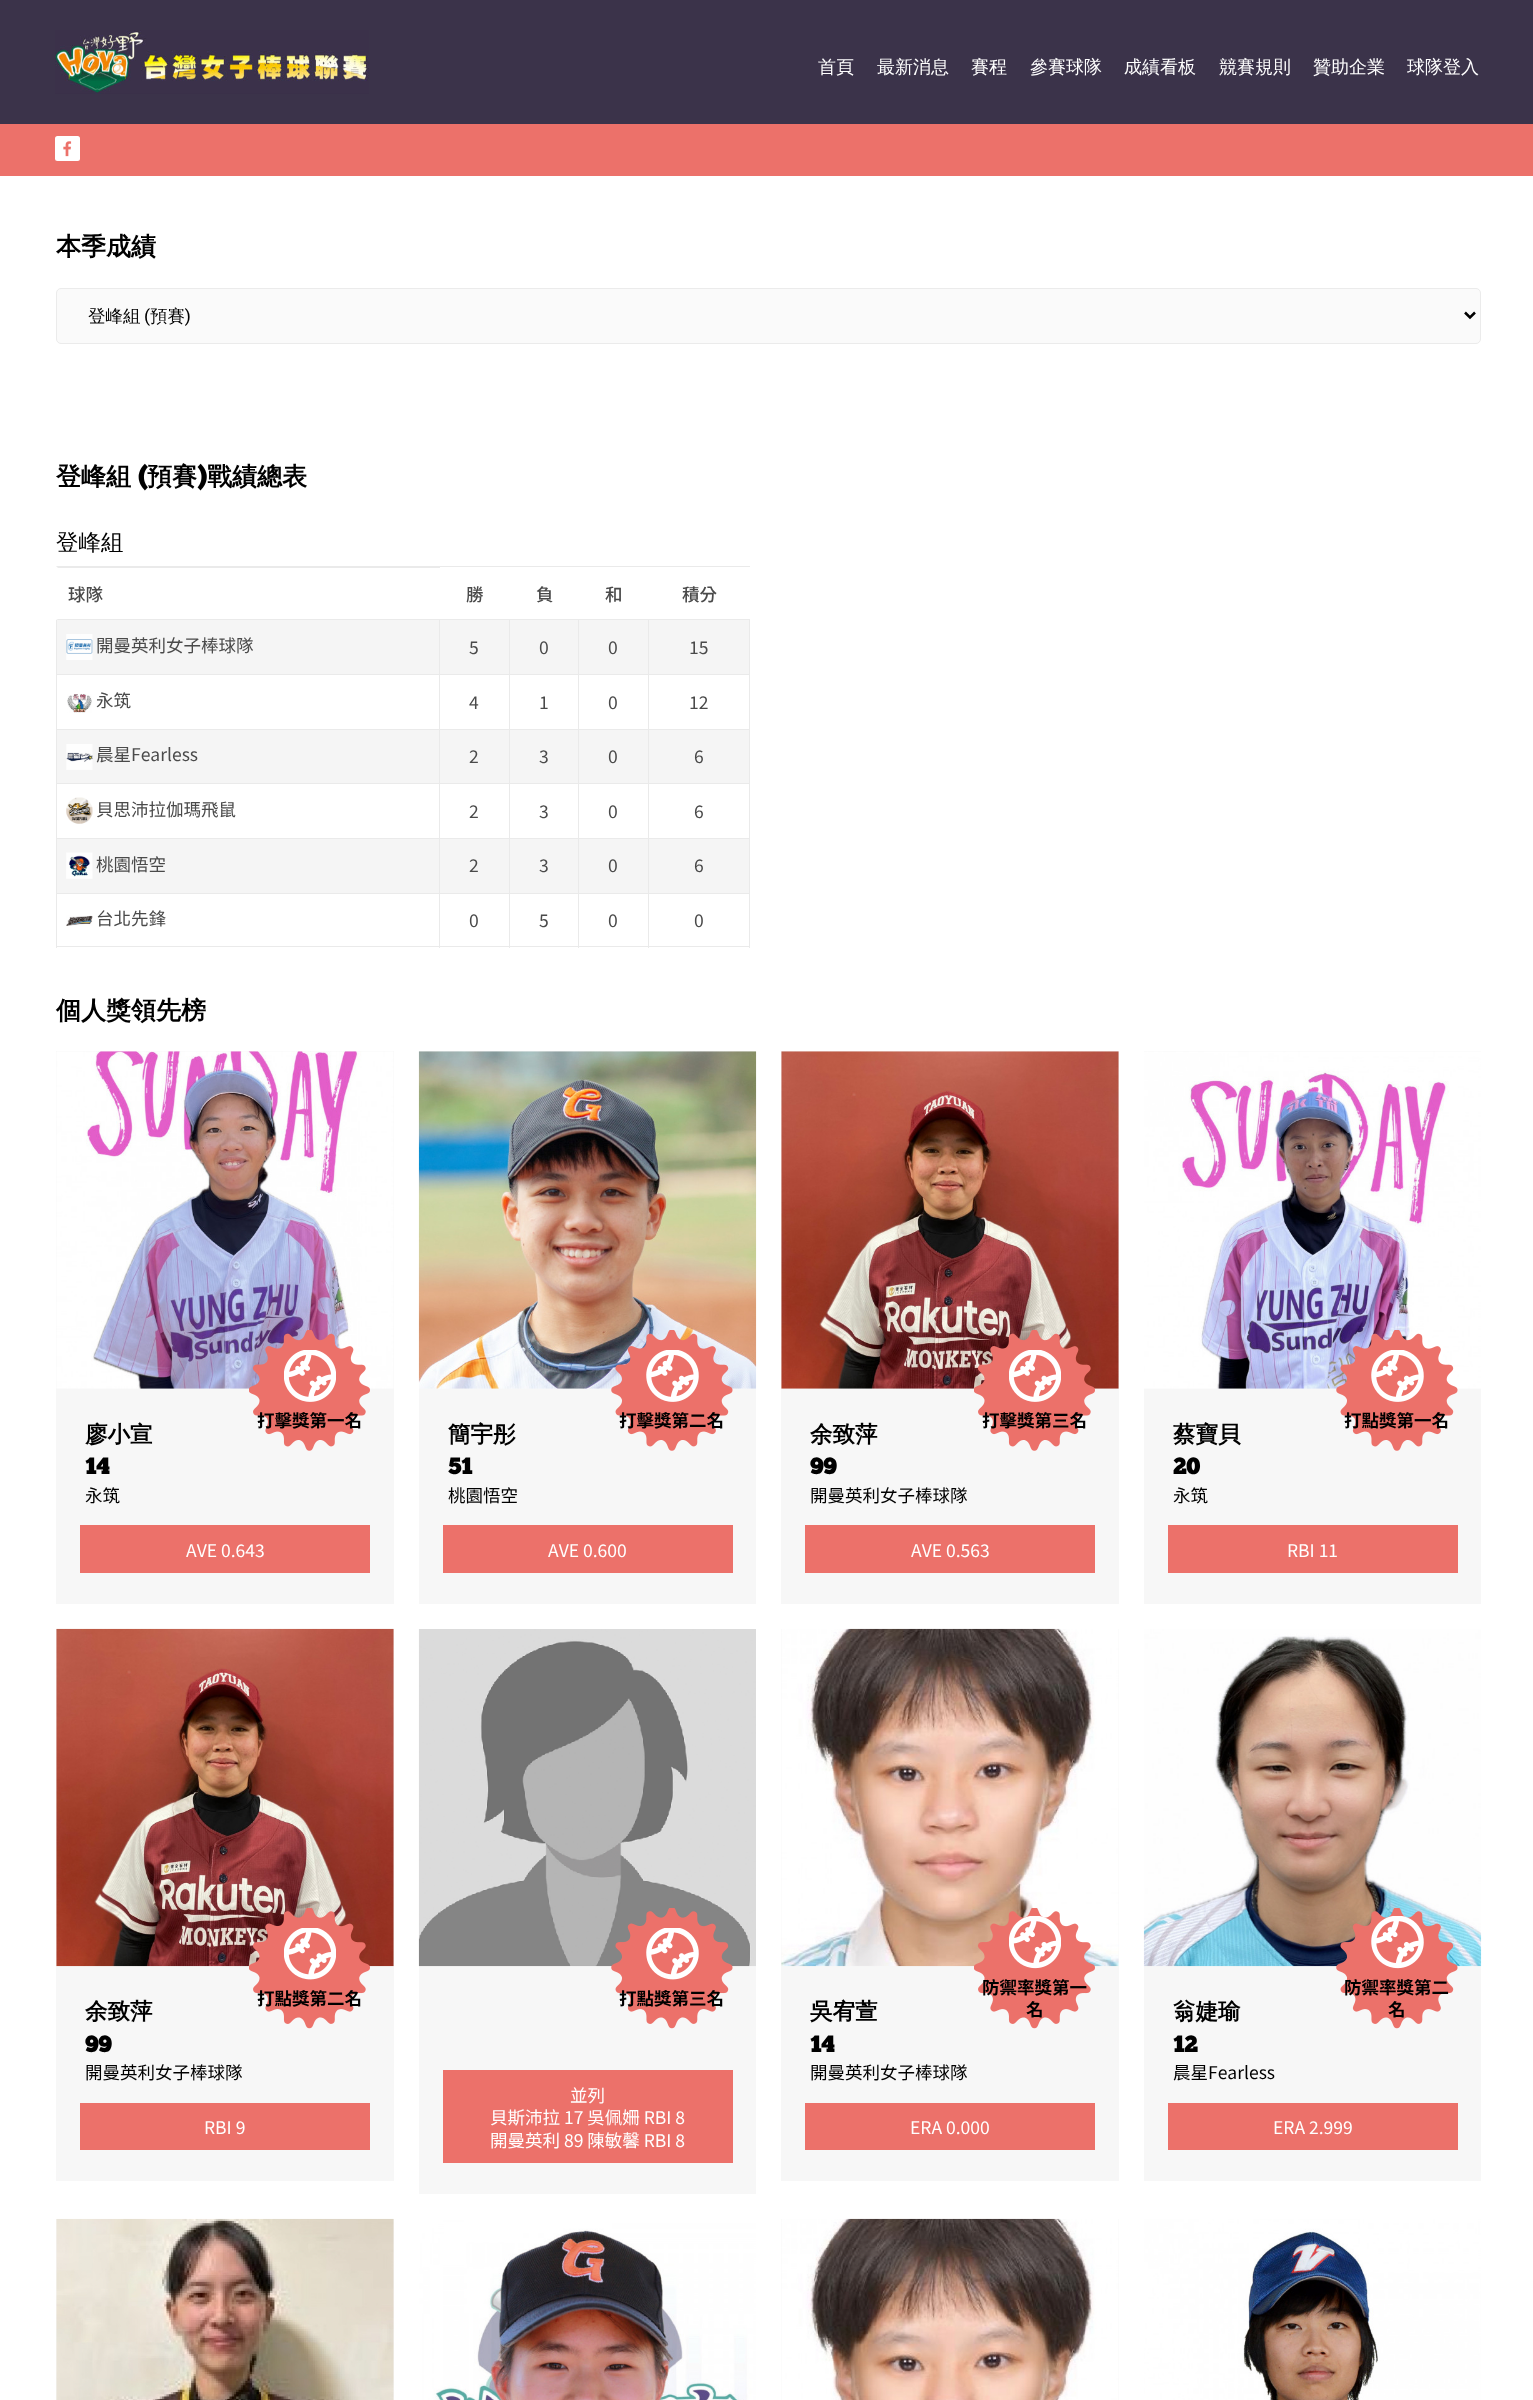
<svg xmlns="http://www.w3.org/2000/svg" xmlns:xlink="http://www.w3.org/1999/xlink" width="1533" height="2400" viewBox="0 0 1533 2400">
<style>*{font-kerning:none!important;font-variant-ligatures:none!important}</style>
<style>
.cls-1{font:500 18px WenQuanYi Zen Hei;fill:#ffffff}
.cls-2{font:bold 25px WenQuanYi Zen Hei;fill:#000000}
.cls-3{font:500 17.5px WenQuanYi Zen Hei;fill:#000000}
.cls-4{font:17.5px roboto;fill:#000000}
.cls-5{font:bold 25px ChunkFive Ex;fill:#000000}
.cls-6{font:500 22.5px WenQuanYi Zen Hei;fill:#000000}
.cls-7{font:500 17.5px Noto Sans CJK TC;fill:#4a4a4a}
.cls-8{font:17.5px Noto Sans CJK TC;fill:#4a4a4a}
.cls-9{font:bold 22.5px WenQuanYi Zen Hei;fill:#000000}
.cls-10{font:bold 22.5px ChunkFive Ex;fill:#000000}
.cls-11{font:bold 17.5px Noto Sans CJK TC;fill:#000000}
.cls-12{font:17.5px Noto Sans CJK TC;fill:#000000}
.cls-13{font:17.5px Noto Sans CJK TC;fill:#ffffff}
</style>
<rect width="100%" height="100%" fill="#ffffff"/>
<rect fill="#3b334a" x="0" y="0" width="1533" height="124"/>
<image xlink:href="image0.png" x="55" y="30" width="314" height="64"/>
<rect fill="#ec716a" x="0" y="124" width="1533" height="52"/>
<rect fill="#ffffff" x="55" y="136" width="25" height="25" rx="2.5"/>
<image xlink:href="image1.png" x="63" y="141" width="9" height="16"/>
<rect fill="#fafafa" stroke="#ebebeb" x="56.5" y="288.5" width="1424" height="55" rx="4.5"/>
<path fill="none" stroke="#000000" stroke-width="2.5" d="M1465 312.5L1470 317.5L1475 312.5"/>
<path fill="#eaeaea" d="M56 566H440V568H58Z"/>
<path fill="#eaeaea" d="M440 620H56L58 619H440Z"/>
<rect fill="#eaeaea" x="440" y="566" width="310" height="1"/>
<rect fill="#eaeaea" x="440" y="619" width="310" height="1"/>
<rect fill="#f5f5f5" x="57" y="620" width="382" height="54"/>
<rect fill="#eaeaea" x="439" y="620" width="1" height="328"/>
<rect fill="#eaeaea" x="56" y="674" width="384" height="1"/>
<rect fill="#eaeaea" x="56" y="620" width="1" height="55"/>
<image xlink:href="image2.png" x="66" y="634" width="27" height="26"/>
<rect fill="#f5f5f5" x="440" y="620" width="69" height="54"/>
<rect fill="#eaeaea" x="509" y="620" width="1" height="328"/>
<rect fill="#eaeaea" x="440" y="674" width="70" height="1"/>
<rect fill="#f5f5f5" x="510" y="620" width="68" height="54"/>
<rect fill="#eaeaea" x="578" y="620" width="1" height="328"/>
<rect fill="#eaeaea" x="510" y="674" width="69" height="1"/>
<rect fill="#f5f5f5" x="579" y="620" width="69" height="54"/>
<rect fill="#eaeaea" x="648" y="620" width="1" height="328"/>
<rect fill="#eaeaea" x="579" y="674" width="70" height="1"/>
<rect fill="#f5f5f5" x="649" y="620" width="100" height="54"/>
<rect fill="#eaeaea" x="749" y="620" width="1" height="328"/>
<rect fill="#eaeaea" x="649" y="674" width="101" height="1"/>
<rect fill="#eaeaea" x="56" y="729" width="694" height="1"/>
<rect fill="#eaeaea" x="56" y="675" width="1" height="55"/>
<image xlink:href="image3.png" x="67" y="694" width="25" height="19"/>
<rect fill="#f5f5f5" x="57" y="730" width="382" height="53"/>
<rect fill="#eaeaea" x="56" y="783" width="694" height="1"/>
<rect fill="#eaeaea" x="56" y="730" width="1" height="54"/>
<image xlink:href="image4.png" x="66" y="744" width="27" height="26"/>
<rect fill="#f5f5f5" x="440" y="730" width="69" height="53"/>
<rect fill="#f5f5f5" x="510" y="730" width="68" height="53"/>
<rect fill="#f5f5f5" x="579" y="730" width="69" height="53"/>
<rect fill="#f5f5f5" x="649" y="730" width="100" height="53"/>
<rect fill="#eaeaea" x="56" y="838" width="694" height="1"/>
<rect fill="#eaeaea" x="56" y="784" width="1" height="55"/>
<image xlink:href="image5.png" x="66" y="797" width="27" height="27"/>
<rect fill="#f5f5f5" x="57" y="839" width="382" height="54"/>
<rect fill="#eaeaea" x="56" y="893" width="694" height="1"/>
<rect fill="#eaeaea" x="56" y="839" width="1" height="55"/>
<image xlink:href="image6.png" x="66" y="852" width="27" height="27"/>
<rect fill="#f5f5f5" x="440" y="839" width="69" height="54"/>
<rect fill="#f5f5f5" x="510" y="839" width="68" height="54"/>
<rect fill="#f5f5f5" x="579" y="839" width="69" height="54"/>
<rect fill="#f5f5f5" x="649" y="839" width="100" height="54"/>
<rect fill="#eaeaea" x="56" y="946" width="694" height="1"/>
<rect fill="#eaeaea" x="56" y="894" width="1" height="54"/>
<image xlink:href="image7.png" x="66" y="915" width="27" height="11"/>
<rect fill="#f7f7f7" x="56" y="1051" width="338" height="553"/>
<image xlink:href="image8.png" x="56" y="1051" width="338" height="338"/>
<image xlink:href="image9.png" x="249" y="1330" width="121" height="121"/>
<image xlink:href="image10.png" x="284" y="1350" width="52" height="52"/>
<rect fill="#ec716a" x="80" y="1525" width="290" height="48"/>
<rect fill="#f7f7f7" x="419" y="1051" width="337" height="553"/>
<image xlink:href="image11.png" x="418" y="1051" width="339" height="338"/>
<image xlink:href="image12.png" x="611" y="1330" width="122" height="121"/>
<image xlink:href="image13.png" x="646" y="1350" width="53" height="52"/>
<rect fill="#ec716a" x="443" y="1525" width="290" height="48"/>
<rect fill="#f7f7f7" x="781" y="1051" width="338" height="553"/>
<image xlink:href="image14.png" x="781" y="1051" width="338" height="338"/>
<image xlink:href="image15.png" x="974" y="1330" width="121" height="121"/>
<image xlink:href="image10.png" x="1009" y="1350" width="52" height="52"/>
<rect fill="#ec716a" x="805" y="1525" width="290" height="48"/>
<rect fill="#f7f7f7" x="1144" y="1051" width="337" height="553"/>
<image xlink:href="image16.png" x="1144" y="1051" width="337" height="338"/>
<image xlink:href="image17.png" x="1336" y="1330" width="122" height="121"/>
<image xlink:href="image13.png" x="1371" y="1350" width="53" height="52"/>
<rect fill="#ec716a" x="1168" y="1525" width="290" height="48"/>
<rect fill="#f7f7f7" x="56" y="1629" width="338" height="552"/>
<image xlink:href="image18.png" x="56" y="1628" width="338" height="339"/>
<image xlink:href="image19.png" x="249" y="1908" width="121" height="121"/>
<image xlink:href="image20.png" x="284" y="1928" width="52" height="52"/>
<rect fill="#ec716a" x="80" y="2103" width="290" height="47"/>
<rect fill="#f7f7f7" x="419" y="1966" width="337" height="228"/>
<image xlink:href="image21.png" x="418" y="1629" width="338" height="338"/>
<image xlink:href="image22.png" x="611" y="1908" width="122" height="121"/>
<image xlink:href="image23.png" x="646" y="1928" width="53" height="52"/>
<rect fill="#ec716a" x="443" y="2070" width="290" height="93"/>
<rect fill="#f7f7f7" x="781" y="1629" width="338" height="552"/>
<image xlink:href="image24.png" x="781" y="1628" width="338" height="339"/>
<image xlink:href="image25.png" x="974" y="1908" width="121" height="121"/>
<image xlink:href="image26.png" x="1009" y="1916" width="52" height="53"/>
<rect fill="#ec716a" x="805" y="2103" width="290" height="47"/>
<rect fill="#f7f7f7" x="1144" y="1966" width="337" height="215"/>
<image xlink:href="image27.png" x="1143" y="1629" width="339" height="338"/>
<image xlink:href="image28.png" x="1336" y="1908" width="122" height="121"/>
<image xlink:href="image29.png" x="1371" y="1916" width="53" height="53"/>
<rect fill="#ec716a" x="1168" y="2103" width="290" height="47"/>
<rect fill="#f7f7f7" x="56" y="2219" width="338" height="181"/>
<image xlink:href="image30.png" x="56" y="2218" width="338" height="182"/>
<image xlink:href="image31.png" x="419" y="2219" width="337" height="181"/>
<rect fill="#f7f7f7" x="781" y="2219" width="338" height="181"/>
<image xlink:href="image32.png" x="781" y="2218" width="338" height="182"/>
<image xlink:href="image33.png" x="1144" y="2219" width="337" height="181"/>
<text class="cls-1" x="818" y="73">首頁</text>
<text class="cls-1" x="877" y="73">最新消息</text>
<text class="cls-1" x="971" y="73">賽程</text>
<text class="cls-1" x="1030" y="73">參賽球隊</text>
<text class="cls-1" x="1124" y="73">成績看板</text>
<text class="cls-1" x="1219" y="73">競賽規則</text>
<text class="cls-1" x="1313" y="73">贊助企業</text>
<text class="cls-1" x="1407" y="73">球隊登入</text>
<text class="cls-2" x="56" y="255">本季成績</text>
<text class="cls-3" x="88" y="322">登峰組</text>
<text class="cls-4" x="144" y="322">(</text>
<text class="cls-3" x="150" y="322">預賽</text>
<text class="cls-4" x="185" y="322">)</text>
<text class="cls-2" x="56" y="485">登峰組</text>
<text class="cls-5" x="138" y="485">(</text>
<text class="cls-2" x="147" y="485">預賽</text>
<text class="cls-5" x="197" y="485">)</text>
<text class="cls-2" x="207" y="485">戰績總表</text>
<text class="cls-6" x="56" y="550">登峰組</text>
<text class="cls-7" x="68" y="601">球隊</text>
<text class="cls-7" x="466" y="601">勝</text>
<text class="cls-7" x="536" y="601">負</text>
<text class="cls-7" x="605" y="601">和</text>
<text class="cls-7" x="682" y="601">積分</text>
<text class="cls-8" x="96" y="652">開曼英利女子棒球隊</text>
<text class="cls-8" x="469" y="654">5</text>
<text class="cls-8" x="539" y="654">0</text>
<text class="cls-8" x="608" y="654">0</text>
<text class="cls-8" x="689" y="654">15</text>
<text class="cls-8" x="96" y="707">永筑</text>
<text class="cls-8" x="469" y="709">4</text>
<text class="cls-8" x="539" y="709">1</text>
<text class="cls-8" x="608" y="709">0</text>
<text class="cls-8" x="689" y="709">12</text>
<text class="cls-8" x="96" y="761">晨星Fearless</text>
<text class="cls-8" x="469" y="763">2</text>
<text class="cls-8" x="539" y="763">3</text>
<text class="cls-8" x="608" y="763">0</text>
<text class="cls-8" x="694" y="763">6</text>
<text class="cls-8" x="96" y="816">貝思沛拉伽瑪飛鼠</text>
<text class="cls-8" x="469" y="818">2</text>
<text class="cls-8" x="539" y="818">3</text>
<text class="cls-8" x="608" y="818">0</text>
<text class="cls-8" x="694" y="818">6</text>
<text class="cls-8" x="96" y="871">桃園悟空</text>
<text class="cls-8" x="469" y="872">2</text>
<text class="cls-8" x="539" y="872">3</text>
<text class="cls-8" x="608" y="872">0</text>
<text class="cls-8" x="694" y="872">6</text>
<text class="cls-8" x="96" y="925">台北先鋒</text>
<text class="cls-8" x="469" y="927">0</text>
<text class="cls-8" x="539" y="927">5</text>
<text class="cls-8" x="608" y="927">0</text>
<text class="cls-8" x="694" y="927">0</text>
<text class="cls-2" x="56" y="1019">個人獎領先榜</text>
<text class="cls-9" x="85" y="1442">廖小宣</text>
<text class="cls-10" x="85" y="1474">14</text>
<text class="cls-11" x="257" y="1427">打擊獎第一名</text>
<text class="cls-12" x="85" y="1502">永筑</text>
<text class="cls-13" x="186" y="1557">AVE 0.643</text>
<text class="cls-9" x="448" y="1442">簡宇彤</text>
<text class="cls-10" x="448" y="1474">51</text>
<text class="cls-11" x="619" y="1427">打擊獎第二名</text>
<text class="cls-12" x="448" y="1502">桃園悟空</text>
<text class="cls-13" x="548" y="1557">AVE 0.600</text>
<text class="cls-11" x="982" y="1427">打擊獎第三名</text>
<text class="cls-9" x="810" y="1442">余致萍</text>
<text class="cls-10" x="810" y="1474">99</text>
<text class="cls-12" x="810" y="1502">開曼英利女子棒球隊</text>
<text class="cls-13" x="911" y="1557">AVE 0.563</text>
<text class="cls-9" x="1173" y="1442">蔡寶貝</text>
<text class="cls-10" x="1173" y="1474">20</text>
<text class="cls-11" x="1344" y="1427">打點獎第一名</text>
<text class="cls-12" x="1173" y="1502">永筑</text>
<text class="cls-13" x="1287" y="1557">RBI 11</text>
<text class="cls-9" x="85" y="2019">余致萍</text>
<text class="cls-10" x="85" y="2052">99</text>
<text class="cls-11" x="257" y="2005">打點獎第二名</text>
<text class="cls-12" x="85" y="2079">開曼英利女子棒球隊</text>
<text class="cls-13" x="204" y="2134">RBI 9</text>
<text class="cls-11" x="619" y="2005">打點獎第三名</text>
<text class="cls-13" x="570" y="2102">並列</text>
<text class="cls-13"><tspan x="490" y="2124">貝斯沛拉 17 吳佩姍 RBI 8</tspan><tspan x="490" y="2147">開曼英利 89 陳敏馨 RBI 8</tspan></text>
<text class="cls-9" x="810" y="2019">吳宥萱</text>
<text class="cls-10" x="810" y="2052">14</text>
<text class="cls-11" x="982" y="1994">防禦率獎第一</text>
<text class="cls-11" x="1026" y="2016">名</text>
<text class="cls-12" x="810" y="2079">開曼英利女子棒球隊</text>
<text class="cls-13" x="910" y="2134">ERA 0.000</text>
<text class="cls-9" x="1173" y="2019">翁婕瑜</text>
<text class="cls-10" x="1173" y="2052">12</text>
<text class="cls-11" x="1344" y="1994">防禦率獎第二</text>
<text class="cls-11" x="1388" y="2016">名</text>
<text class="cls-12" x="1173" y="2079">晨星Fearless</text>
<text class="cls-13" x="1273" y="2134">ERA 2.999</text>
</svg>
